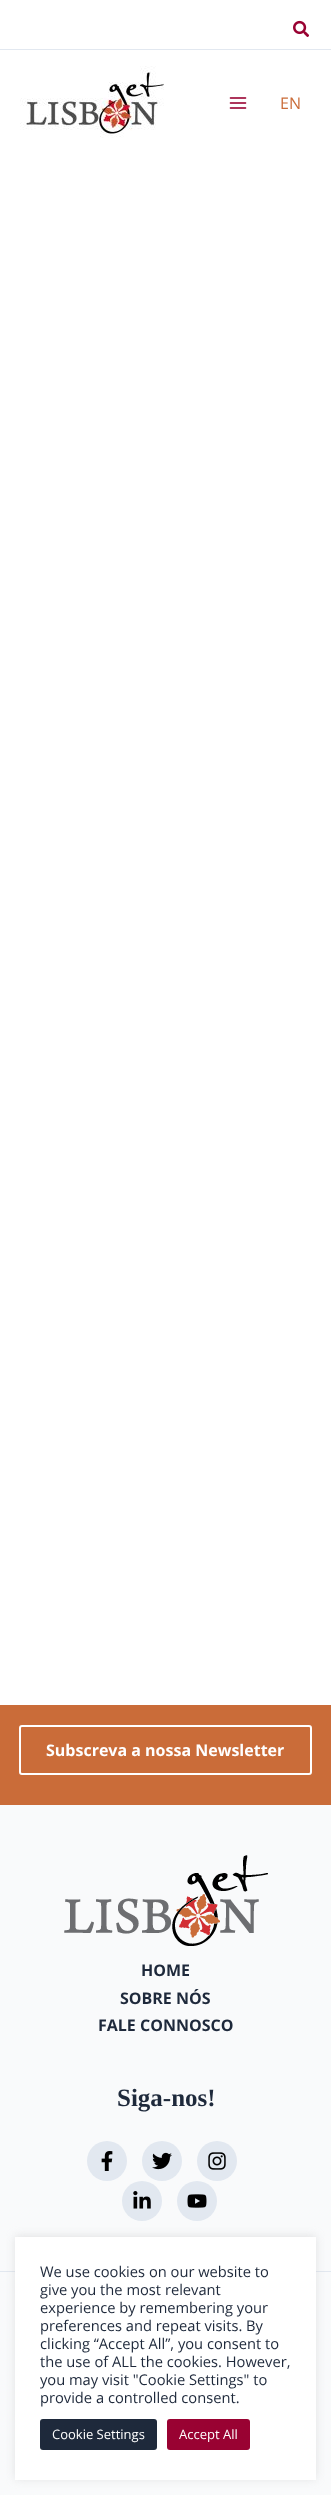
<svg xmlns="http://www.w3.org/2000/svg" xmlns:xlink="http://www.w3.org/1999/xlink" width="331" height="2495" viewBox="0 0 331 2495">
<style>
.cls-1{font:16px Open Sans;fill:#ca6c39}
.cls-2{font:bold 16px Open Sans;fill:#ffffff}
.cls-3{font:bold 16px Open Sans;fill:#1e293b}
.cls-4{font:bold 25px Liberation Serif;fill:#1e293b}
.cls-5{font:14.7px Open Sans;fill:#1e293b}
.cls-6{font:13px Open Sans;fill:#ffffff}
</style>
<rect width="100%" height="100%" fill="#ffffff"/>
<rect fill="#e2e8f0" x="0" y="49" width="331" height="1"/>
<image xlink:href="image0.png" x="293" y="20" width="16" height="17"/>
<image xlink:href="image1.png" x="20" y="66" width="144" height="72"/>
<image xlink:href="image2.png" x="229" y="97" width="18" height="12"/>
<rect fill="#ca6c39" x="0" y="1705" width="331" height="100"/>
<rect fill="none" stroke="#ffffff" stroke-width="2" x="20" y="1726" width="291" height="48" rx="2"/>
<rect fill="#f9fafb" x="0" y="1805" width="331" height="466"/>
<image xlink:href="image3.png" x="64" y="1855" width="204" height="91"/>
<circle fill="#e2e8f0" cx="107" cy="2161" r="20"/>
<image xlink:href="image4.png" x="101" y="2151" width="12" height="20"/>
<circle fill="#e2e8f0" cx="162" cy="2161" r="20"/>
<image xlink:href="image5.png" x="152" y="2152" width="20" height="18"/>
<circle fill="#e2e8f0" cx="217" cy="2161" r="20"/>
<image xlink:href="image6.png" x="208" y="2152" width="18" height="18"/>
<circle fill="#e2e8f0" cx="142" cy="2201" r="20"/>
<image xlink:href="image7.png" x="133" y="2191" width="18" height="18"/>
<circle fill="#e2e8f0" cx="197" cy="2201" r="20"/>
<image xlink:href="image8.png" x="187" y="2194" width="20" height="14"/>
<rect fill="#f9fafb" x="0" y="2272" width="331" height="223"/>
<rect fill="#e2e8f0" x="0" y="2271" width="331" height="1"/>
<rect fill="#acabab" fill-opacity="0.3" filter="blur(5px)" x="15" y="2236" width="301" height="243"/>
<rect fill="#ffffff" x="15" y="2237" width="301" height="243"/>
<rect fill="#1e293b" x="40" y="2419" width="117" height="31" rx="3"/>
<rect fill="#990232" x="167" y="2419" width="83" height="31" rx="3"/>
<text class="cls-1" x="280" y="109">EN</text>
<text class="cls-2" x="46" y="1756">Subscreva a nossa Newsletter</text>
<text class="cls-3" x="141" y="1976">HOME</text>
<text class="cls-3" x="120" y="2004">SOBRE NÓS</text>
<text class="cls-3" x="98" y="2031">FALE CONNOSCO</text>
<text class="cls-4" x="117" y="2106">Siga-nos!</text>
<text class="cls-5"><tspan x="40" y="2277">We use cookies on our website to</tspan><tspan x="40" y="2295">give you the most relevant</tspan><tspan x="40" y="2313">experience by remembering your</tspan><tspan x="40" y="2331">preferences and repeat visits. By</tspan><tspan x="40" y="2349">clicking “Accept All”, you consent to</tspan><tspan x="40" y="2367">the use of ALL the cookies. However,</tspan><tspan x="40" y="2385">you may visit "Cookie Settings" to</tspan><tspan x="40" y="2403">provide a controlled consent.</tspan></text>
<text class="cls-6" x="52" y="2439">Cookie Settings</text>
<text class="cls-6" x="179" y="2439">Accept All</text>
</svg>
